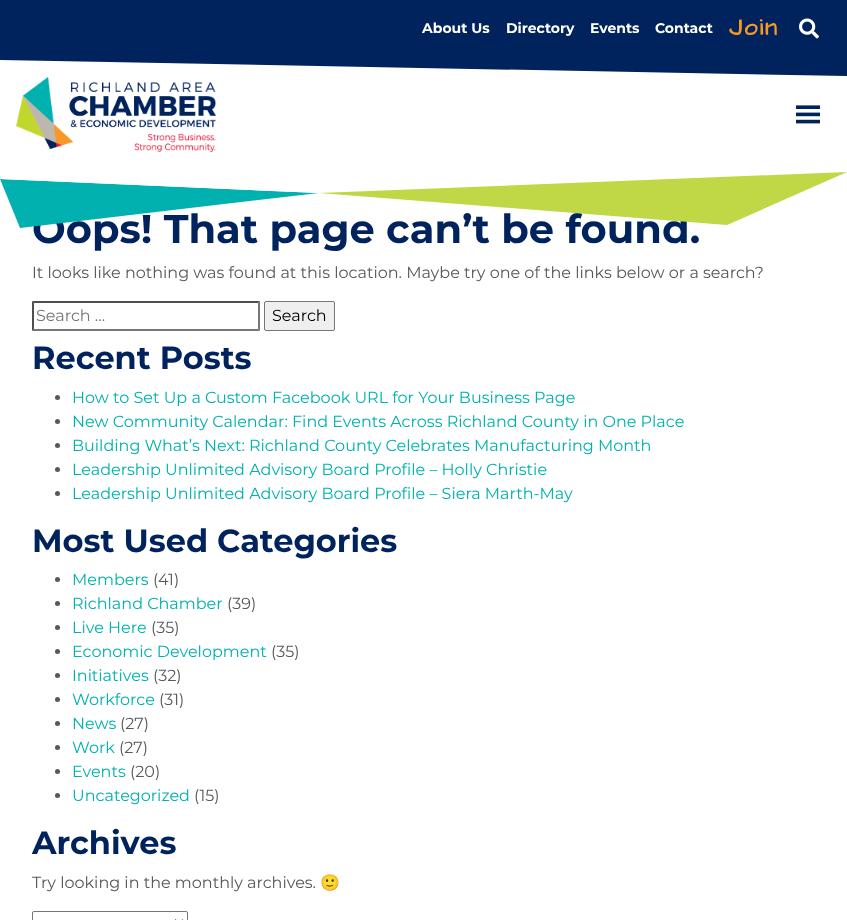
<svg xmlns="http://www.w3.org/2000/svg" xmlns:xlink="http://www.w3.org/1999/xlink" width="847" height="920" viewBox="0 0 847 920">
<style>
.cls-1{font:bold 40px Montserrat;fill:#00235d}
.cls-2{font:bold 24px Architects Daughter;letter-spacing:2px;fill:#f89828}
.cls-3{font:bold 14px Montserrat;fill:#ffffff}
.cls-4{font:16px Montserrat;fill:#56585a}
.cls-5{font:16px Montserrat;fill:#757575}
.cls-6{font:16px Montserrat;fill:#000000}
.cls-7{font:bold 32px Montserrat;fill:#00235d}
.cls-8{font:16px Montserrat;fill:#00b1b0}
.cls-9{font:16px Noto Color Emoji;fill:#56585a}
</style>
<rect width="100%" height="100%" fill="#ffffff"/>
<path fill="#4f4f4f" d="M32 301H260L258 303H34Z"/>
<path fill="#767676" d="M260 301V331L258 329V303Z"/>
<path fill="#767676" d="M260 331H32L34 329H258Z"/>
<path fill="#4f4f4f" d="M32 331V301L34 303V329Z"/>
<rect fill="#efefef" stroke="#767676" x="264.5" y="301.5" width="70" height="29" rx="1.5"/>
<circle fill="#56585a" cx="57.5" cy="397.5" r="2.5"/>
<circle fill="#56585a" cx="57.5" cy="421.5" r="2.5"/>
<circle fill="#56585a" cx="57.5" cy="445.5" r="2.5"/>
<circle fill="#56585a" cx="57.5" cy="469.5" r="2.5"/>
<circle fill="#56585a" cx="57.5" cy="493.5" r="2.5"/>
<circle fill="#56585a" cx="57.5" cy="579.5" r="2.5"/>
<circle fill="#56585a" cx="57.5" cy="603.5" r="2.5"/>
<circle fill="#56585a" cx="57.5" cy="627.5" r="2.5"/>
<circle fill="#56585a" cx="57.5" cy="651.5" r="2.5"/>
<circle fill="#56585a" cx="57.5" cy="675.5" r="2.5"/>
<circle fill="#56585a" cx="57.5" cy="699.5" r="2.5"/>
<circle fill="#56585a" cx="57.5" cy="723.5" r="2.5"/>
<circle fill="#56585a" cx="57.5" cy="747.5" r="2.5"/>
<circle fill="#56585a" cx="57.5" cy="771.5" r="2.5"/>
<circle fill="#56585a" cx="57.5" cy="795.5" r="2.5"/>
<rect fill="none" stroke="#767676" x="32.5" y="911.5" width="155" height="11" rx="1.5"/>
<path fill="none" stroke="#000000" stroke-width="2" d="M175 920L179 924L183 920"/>
<text class="cls-1" x="32" y="243">Oops! That page can’t be found.</text>
<path fill="#00b1af" d="M319 193L0 179L20 228Z"/>
<path fill="#ffffff" d="M847 0H0V179L319 193L847 172"/>
<rect fill="#00235d" x="0" y="0" width="726" height="60"/>
<path fill="#00235d" d="M847-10V76L0 60Z"/>
<image xlink:href="image0.png" x="799" y="18" width="20" height="21"/>
<image xlink:href="image2.png" x="796" y="105" width="24" height="19"/>
<image xlink:href="image1.png" x="16" y="77" width="200" height="75"/>
<text class="cls-2" x="729" y="35">Join</text>
<text class="cls-3" x="655" y="33">Contact</text>
<text class="cls-3" x="590" y="33">Events</text>
<text class="cls-3" x="506" y="33">Directory</text>
<text class="cls-3" x="422" y="33">About Us</text>
<path fill="#c0d746" d="M319 193L727 225L847 172Z"/>
<text class="cls-4" x="32" y="278">It looks like nothing was found at this location. Maybe try one of the links below or a search?</text>
<text class="cls-5" x="36" y="321">Search …</text>
<text class="cls-6" x="272" y="321">Search</text>
<text class="cls-7" x="32" y="369">Recent Posts</text>
<text class="cls-8"><tspan x="72" y="403">How to Set Up a Custom Facebook URL for Your Business Page</tspan><tspan x="72" y="427">New Community Calendar: Find Events Across Richland County in One Place</tspan><tspan x="72" y="451">Building What’s Next: Richland County Celebrates Manufacturing Month</tspan><tspan x="72" y="475">Leadership Unlimited Advisory Board Profile – Holly Christie</tspan><tspan x="72" y="499">Leadership Unlimited Advisory Board Profile – Siera Marth-May</tspan></text>
<text class="cls-7" x="32" y="552">Most Used Categories</text>
<text class="cls-8" x="72" y="585">Members</text>
<text class="cls-4" x="153" y="585">(41)</text>
<text class="cls-8" x="72" y="609">Richland Chamber</text>
<text class="cls-4" x="227" y="609">(39)</text>
<text class="cls-8" x="72" y="633">Live Here</text>
<text class="cls-4" x="151" y="633">(35)</text>
<text class="cls-8" x="72" y="657">Economic Development</text>
<text class="cls-4" x="271" y="657">(35)</text>
<text class="cls-8" x="72" y="681">Initiatives</text>
<text class="cls-4" x="153" y="681">(32)</text>
<text class="cls-8" x="72" y="705">Workforce</text>
<text class="cls-4" x="159" y="705">(31)</text>
<text class="cls-8" x="72" y="729">News</text>
<text class="cls-4" x="120" y="729">(27)</text>
<text class="cls-8" x="72" y="753">Work</text>
<text class="cls-4" x="119" y="753">(27)</text>
<text class="cls-8" x="72" y="777">Events</text>
<text class="cls-4" x="130" y="777">(20)</text>
<text class="cls-8" x="72" y="801">Uncategorized</text>
<text class="cls-4" x="194" y="801">(15)</text>
<text class="cls-7" x="32" y="854">Archives</text>
<text class="cls-4" x="32" y="888">Try looking in the monthly archives.</text>
<text class="cls-9" x="320" y="888">🙂</text>
</svg>
